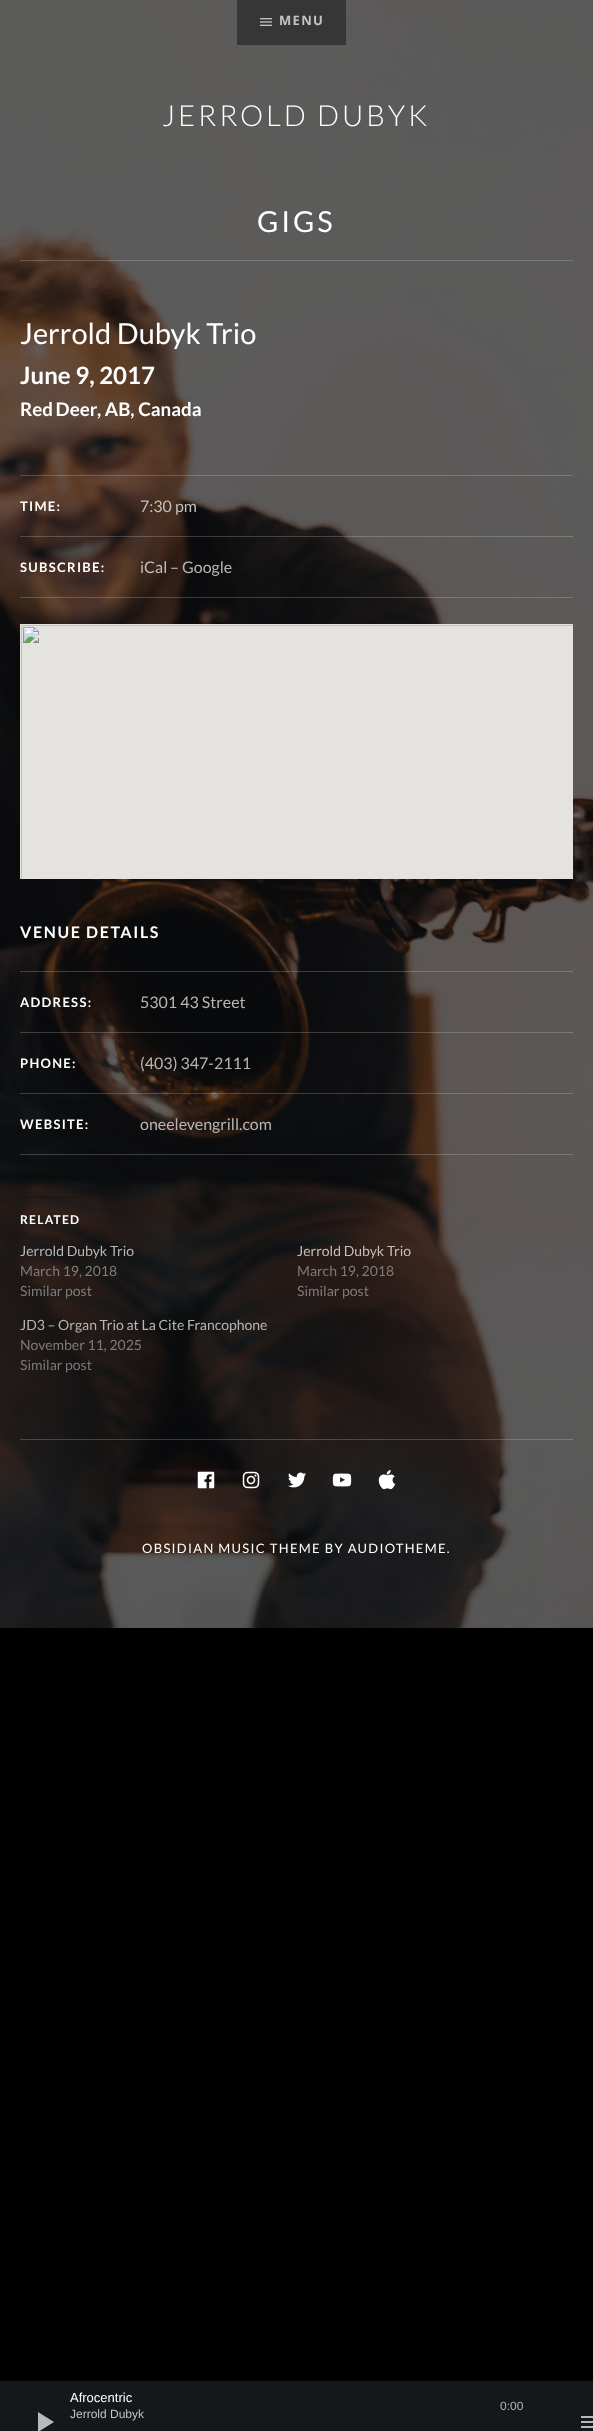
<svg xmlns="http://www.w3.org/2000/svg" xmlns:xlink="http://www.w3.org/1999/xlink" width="593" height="2431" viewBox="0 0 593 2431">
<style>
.cls-1{font:bold 13px Open Sans;letter-spacing:1.3px;fill:#c3c3c3}
.cls-2{font:300 29px Lato;letter-spacing:2.9px;fill:#ffffff}
.cls-3{font:29px Lato;letter-spacing:2.9px;fill:#ffffff}
.cls-4{font:29px Lato;fill:#ffffff}
.cls-5{font:bold 24px Lato;fill:#ffffff}
.cls-6{font:bold 18.75px Lato;fill:#ffffff}
.cls-7{font:bold 13px Lato;letter-spacing:1.3px;fill:#ffffff}
.cls-8{font:16px Lato;fill:#c3bebb}
.cls-9{font:16px Lato;fill:#b7b6b7}
.cls-10{font:bold 16px Lato;letter-spacing:1.6px;fill:#ffffff}
.cls-11{font:bold 12px Lato;letter-spacing:1.25px;fill:#ffffff}
.cls-12{font:14px Lato;fill:#b7b6b7}
.cls-13{font:14px Lato;fill:#807a79}
.cls-14{font:14px Lato;fill:#c3bebb}
.cls-15{font:14px Lato;fill:#7a7877}
.cls-16{font:13px Lato;letter-spacing:1.3px;fill:#ffffff}
.cls-17{font:13px Liberation Sans;fill:#ffffff}
.cls-18{font:12px Liberation Sans;fill:#c3c3c3}
.cls-19{font:12px Liberation Sans;fill:#b7b6b7}
</style>
<rect width="100%" height="100%" fill="#000000"/>
<image xlink:href="image0.png" x="0" y="0" width="593" height="1628"/>
<rect fill="#373636" x="237" y="0" width="109" height="45"/>
<image xlink:href="image1.png" x="260" y="18" width="12" height="8"/>
<rect fill="#ffffff" fill-opacity="0.2" x="20" y="260" width="553" height="1"/>
<rect fill="#ffffff" fill-opacity="0.2" x="20" y="475" width="553" height="1"/>
<rect fill="#ffffff" fill-opacity="0.2" x="20" y="536" width="553" height="1"/>
<rect fill="#ffffff" fill-opacity="0.2" x="20" y="597" width="553" height="1"/>
<image xlink:href="image2.png" x="20" y="624" width="553" height="255"/>
<rect fill="#ffffff" fill-opacity="0.2" x="20" y="971" width="553" height="1"/>
<rect fill="#ffffff" fill-opacity="0.2" x="20" y="1032" width="553" height="1"/>
<rect fill="#ffffff" fill-opacity="0.2" x="20" y="1093" width="553" height="1"/>
<rect fill="#ffffff" fill-opacity="0.2" x="20" y="1154" width="553" height="1"/>
<rect fill="#000000" fill-opacity="0.2" x="20" y="1197" width="60" height="1"/>
<rect fill="#ffffff" fill-opacity="0.2" x="20" y="1439" width="553" height="1"/>
<image xlink:href="image3.png" x="197" y="1471" width="18" height="18"/>
<image xlink:href="image4.png" x="242" y="1471" width="18" height="18"/>
<image xlink:href="image5.png" x="288" y="1472" width="18" height="16"/>
<image xlink:href="image6.png" x="332" y="1473" width="20" height="14"/>
<image xlink:href="image7.png" x="378" y="1470" width="18" height="20"/>
<rect fill="#14181a" x="0" y="2381" width="593" height="50"/>
<path fill="#b9baba" d="M54 2422L38 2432V2412Z"/>
<image xlink:href="image8.png" x="581" y="2416" width="12" height="12"/>
<text class="cls-1" x="279" y="25">MENU</text>
<text class="cls-2" x="162" y="126">JERROLD DUBYK</text>
<text class="cls-3" x="257" y="232">GIGS</text>
<text class="cls-4" x="20" y="344">Jerrold Dubyk Trio</text>
<text class="cls-5" x="20" y="384">June 9, 2017</text>
<text class="cls-6" x="20" y="416" word-spacing="-1">Red Deer</text>
<text class="cls-6" x="97" y="416">, AB, Canada</text>
<text class="cls-7" x="20" y="511">TIME:</text>
<text class="cls-8" x="140" y="512">7:30 pm</text>
<text class="cls-7" x="20" y="572">SUBSCRIBE:</text>
<text class="cls-8" x="140" y="573">iCal</text>
<text class="cls-8" x="170" y="573">–</text>
<text class="cls-9" x="182" y="573">Google</text>
<text class="cls-10" x="20" y="938">VENUE DETAILS</text>
<text class="cls-7" x="20" y="1007">ADDRESS:</text>
<text class="cls-9" x="140" y="1008">5301 43 Street</text>
<text class="cls-7" x="20" y="1068">PHONE:</text>
<text class="cls-9" x="140" y="1069">(403) 347-2111</text>
<text class="cls-7" x="20" y="1129">WEBSITE:</text>
<text class="cls-9" x="140" y="1130">oneelevengrill.com</text>
<text class="cls-11" x="20" y="1224">RELATED</text>
<text class="cls-12" x="20" y="1256">Jerrold Dubyk Trio</text>
<text class="cls-13"><tspan x="20" y="1276">March 19, 2018</tspan><tspan x="20" y="1296">Similar post</tspan></text>
<text class="cls-14" x="297" y="1256">Jerrold Dubyk Trio</text>
<text class="cls-13"><tspan x="297" y="1276">March 19, 2018</tspan><tspan x="297" y="1296">Similar post</tspan></text>
<text class="cls-12" x="20" y="1330">JD3 – Organ Trio at La Cite Francophone</text>
<text class="cls-13" x="20" y="1350">November 11, 2025</text>
<text class="cls-15" x="20" y="1370">Similar post</text>
<text class="cls-16" x="142" y="1553">OBSIDIAN MUSIC THEME BY AUDIOTHEME.</text>
<text class="cls-17" x="70" y="2402">Afrocentric</text>
<text class="cls-18" x="70" y="2418">Jerrold Dubyk</text>
<text class="cls-19" x="500" y="2410">0:00</text>
</svg>
